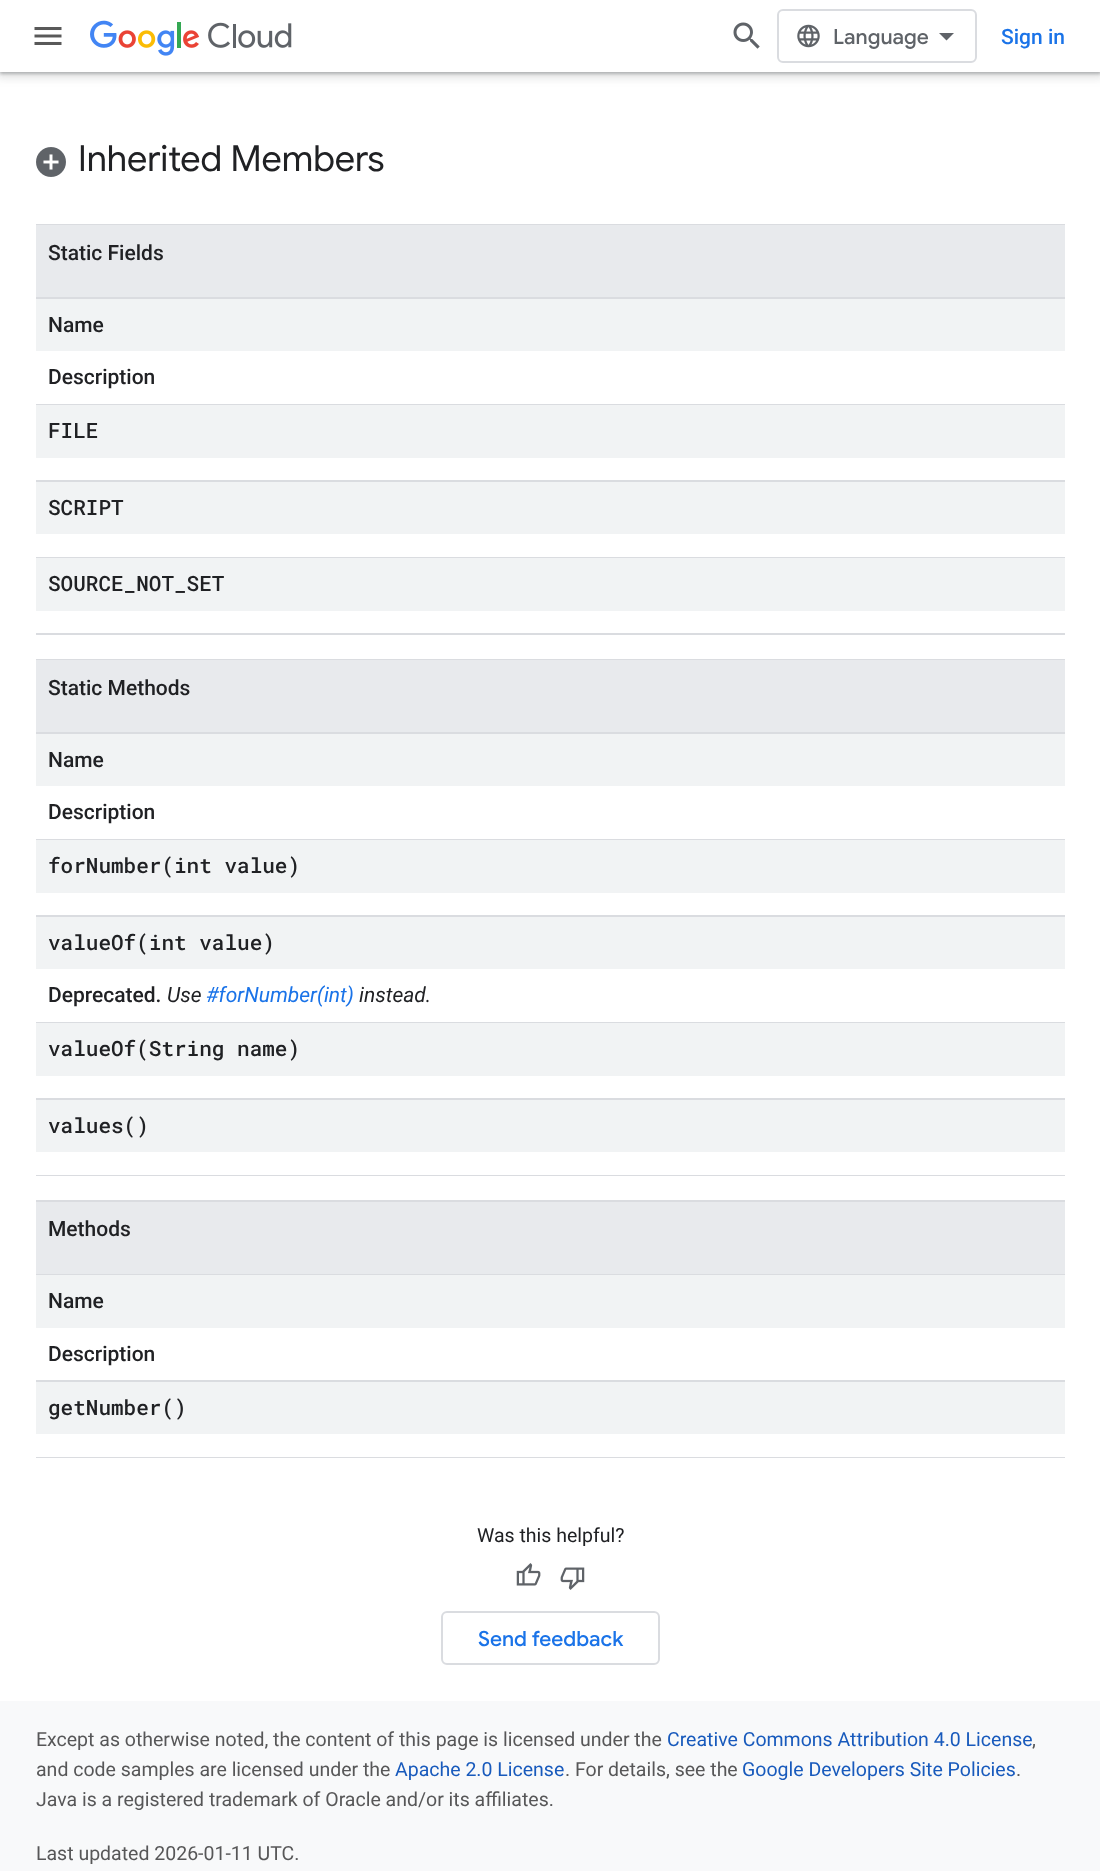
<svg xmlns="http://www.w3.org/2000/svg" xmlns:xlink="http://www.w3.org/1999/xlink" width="1100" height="1871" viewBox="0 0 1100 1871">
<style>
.cls-1{font:500 21px Google Sans;fill:#5f6368}
.cls-2{font:500 21px Roboto;fill:#1a73e8}
.cls-3{font:36px Google Sans;fill:#202124}
.cls-4{font:500 21px Roboto;fill:#202124}
.cls-5{font:500 21px Roboto Mono;fill:#202124}
.cls-6{font:italic 21px Roboto;fill:#202124}
.cls-7{font:italic 21px Roboto;fill:#1a73e8}
.cls-8{font:19.5px Roboto;fill:#202124}
.cls-9{font:500 21px Google Sans;fill:#1a73e8}
.cls-10{font:19.5px Roboto;fill:#575758}
.cls-11{font:19.5px Roboto;fill:#185abc}
</style>
<rect width="100%" height="100%" fill="#f8f9fa"/>
<rect fill="#ffffff" x="0" y="72" width="1100" height="1629"/>
<rect fill="#3c4043" fill-opacity="0.15" filter="blur(4.5px)" x="-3" y="-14" width="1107" height="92"/>
<rect fill="#3c4043" fill-opacity="0.3" filter="blur(1.5px)" x="0" y="-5" width="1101" height="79"/>
<rect fill="#ffffff" x="0" y="0" width="1100" height="72"/>
<image xlink:href="image0.png" x="34" y="27" width="28" height="18"/>
<image xlink:href="image1.png" x="90" y="20" width="202" height="36"/>
<image xlink:href="image2.png" x="733" y="22" width="27" height="27"/>
<rect fill="none" stroke="#dadce0" stroke-width="2" x="778" y="10" width="198" height="52" rx="5"/>
<image xlink:href="image3.png" x="797" y="24" width="23" height="24"/>
<path fill="#5f6368" d="M946.5 40.5L939 33H954Z"/>
<image xlink:href="image4.png" x="36" y="147" width="30" height="30"/>
<rect fill="#dadce0" x="36" y="224" width="1029" height="1"/>
<rect fill="#dadce0" x="36" y="297" width="1029" height="2"/>
<rect fill="#e8eaed" x="36" y="225" width="1029" height="72"/>
<rect fill="#dadce0" x="36" y="404" width="1029" height="1"/>
<rect fill="#f1f3f4" x="36" y="299" width="1029" height="52"/>
<rect fill="#dadce0" x="36" y="480" width="1029" height="2"/>
<rect fill="#f1f3f4" x="36" y="405" width="1029" height="53"/>
<rect fill="#dadce0" x="36" y="557" width="1029" height="1"/>
<rect fill="#f1f3f4" x="36" y="482" width="1029" height="52"/>
<rect fill="#dadce0" x="36" y="633" width="1029" height="2"/>
<rect fill="#f1f3f4" x="36" y="558" width="1029" height="53"/>
<rect fill="#dadce0" x="36" y="659" width="1029" height="1"/>
<rect fill="#dadce0" x="36" y="732" width="1029" height="2"/>
<rect fill="#e8eaed" x="36" y="660" width="1029" height="72"/>
<rect fill="#dadce0" x="36" y="839" width="1029" height="1"/>
<rect fill="#f1f3f4" x="36" y="734" width="1029" height="52"/>
<rect fill="#dadce0" x="36" y="915" width="1029" height="2"/>
<rect fill="#f1f3f4" x="36" y="840" width="1029" height="53"/>
<rect fill="#dadce0" x="36" y="1022" width="1029" height="1"/>
<rect fill="#f1f3f4" x="36" y="917" width="1029" height="52"/>
<rect fill="#dadce0" x="36" y="1098" width="1029" height="2"/>
<rect fill="#f1f3f4" x="36" y="1023" width="1029" height="53"/>
<rect fill="#dadce0" x="36" y="1175" width="1029" height="1"/>
<rect fill="#f1f3f4" x="36" y="1100" width="1029" height="52"/>
<rect fill="#dadce0" x="36" y="1200" width="1029" height="2"/>
<rect fill="#dadce0" x="36" y="1274" width="1029" height="1"/>
<rect fill="#e8eaed" x="36" y="1202" width="1029" height="72"/>
<rect fill="#dadce0" x="36" y="1380" width="1029" height="2"/>
<rect fill="#f1f3f4" x="36" y="1275" width="1029" height="53"/>
<rect fill="#dadce0" x="36" y="1457" width="1029" height="1"/>
<rect fill="#f1f3f4" x="36" y="1382" width="1029" height="52"/>
<image xlink:href="image5.png" x="516" y="1563" width="25" height="23"/>
<image xlink:href="image6.png" x="560" y="1567" width="25" height="23"/>
<rect fill="none" stroke="#dadce0" stroke-width="2" x="442" y="1612" width="217" height="52" rx="5"/>
<text class="cls-1" x="833" y="44">Language</text>
<text class="cls-2" x="1001" y="44">Sign in</text>
<text class="cls-3" x="78" y="171">Inherited Members</text>
<text class="cls-4" x="48" y="260">Static Fields</text>
<text class="cls-4" x="48" y="332">Name</text>
<text class="cls-4" x="48" y="384">Description</text>
<text class="cls-5" x="48" y="438">FILE</text>
<text class="cls-5" x="48" y="515">SCRIPT</text>
<text class="cls-5" x="48" y="591">SOURCE_NOT_SET</text>
<text class="cls-4" x="48" y="695">Static Methods</text>
<text class="cls-4" x="48" y="767">Name</text>
<text class="cls-4" x="48" y="819">Description</text>
<text class="cls-5" x="48" y="873">forNumber(int value)</text>
<text class="cls-5" x="48" y="950">valueOf(int value)</text>
<text class="cls-4" x="48" y="1002">Deprecated.</text>
<text class="cls-6" x="167" y="1002">Use</text>
<text class="cls-7" x="206" y="1002">#forNumber(int)</text>
<text class="cls-6" x="359" y="1002">instead.</text>
<text class="cls-5" x="48" y="1056">valueOf(String name)</text>
<text class="cls-5" x="48" y="1133">values()</text>
<text class="cls-4" x="48" y="1236">Methods</text>
<text class="cls-4" x="48" y="1308">Name</text>
<text class="cls-4" x="48" y="1361">Description</text>
<text class="cls-5" x="48" y="1415">getNumber()</text>
<text class="cls-8" x="477" y="1542">Was this helpful?</text>
<text class="cls-9" x="478" y="1646">Send feedback</text>
<text class="cls-10" x="36" y="1746">Except as otherwise noted, the content of this page is licensed under the</text>
<text class="cls-11" x="667" y="1746">Creative Commons Attribution 4.0 License</text>
<text class="cls-10" x="1032" y="1746">,</text>
<text class="cls-10" x="36" y="1776">and code samples are licensed under the</text>
<text class="cls-11" x="395" y="1776">Apache 2.0 License</text>
<text class="cls-10" x="565" y="1776">. For details, see the</text>
<text class="cls-11" x="742" y="1776">Google Developers Site Policies</text>
<text class="cls-10" x="1016" y="1776">.</text>
<text class="cls-10" x="36" y="1806">Java is a registered trademark of Oracle and/or its affiliates.</text>
<text class="cls-10" x="36" y="1860">Last updated 2026-01-11 UTC.</text>
</svg>
